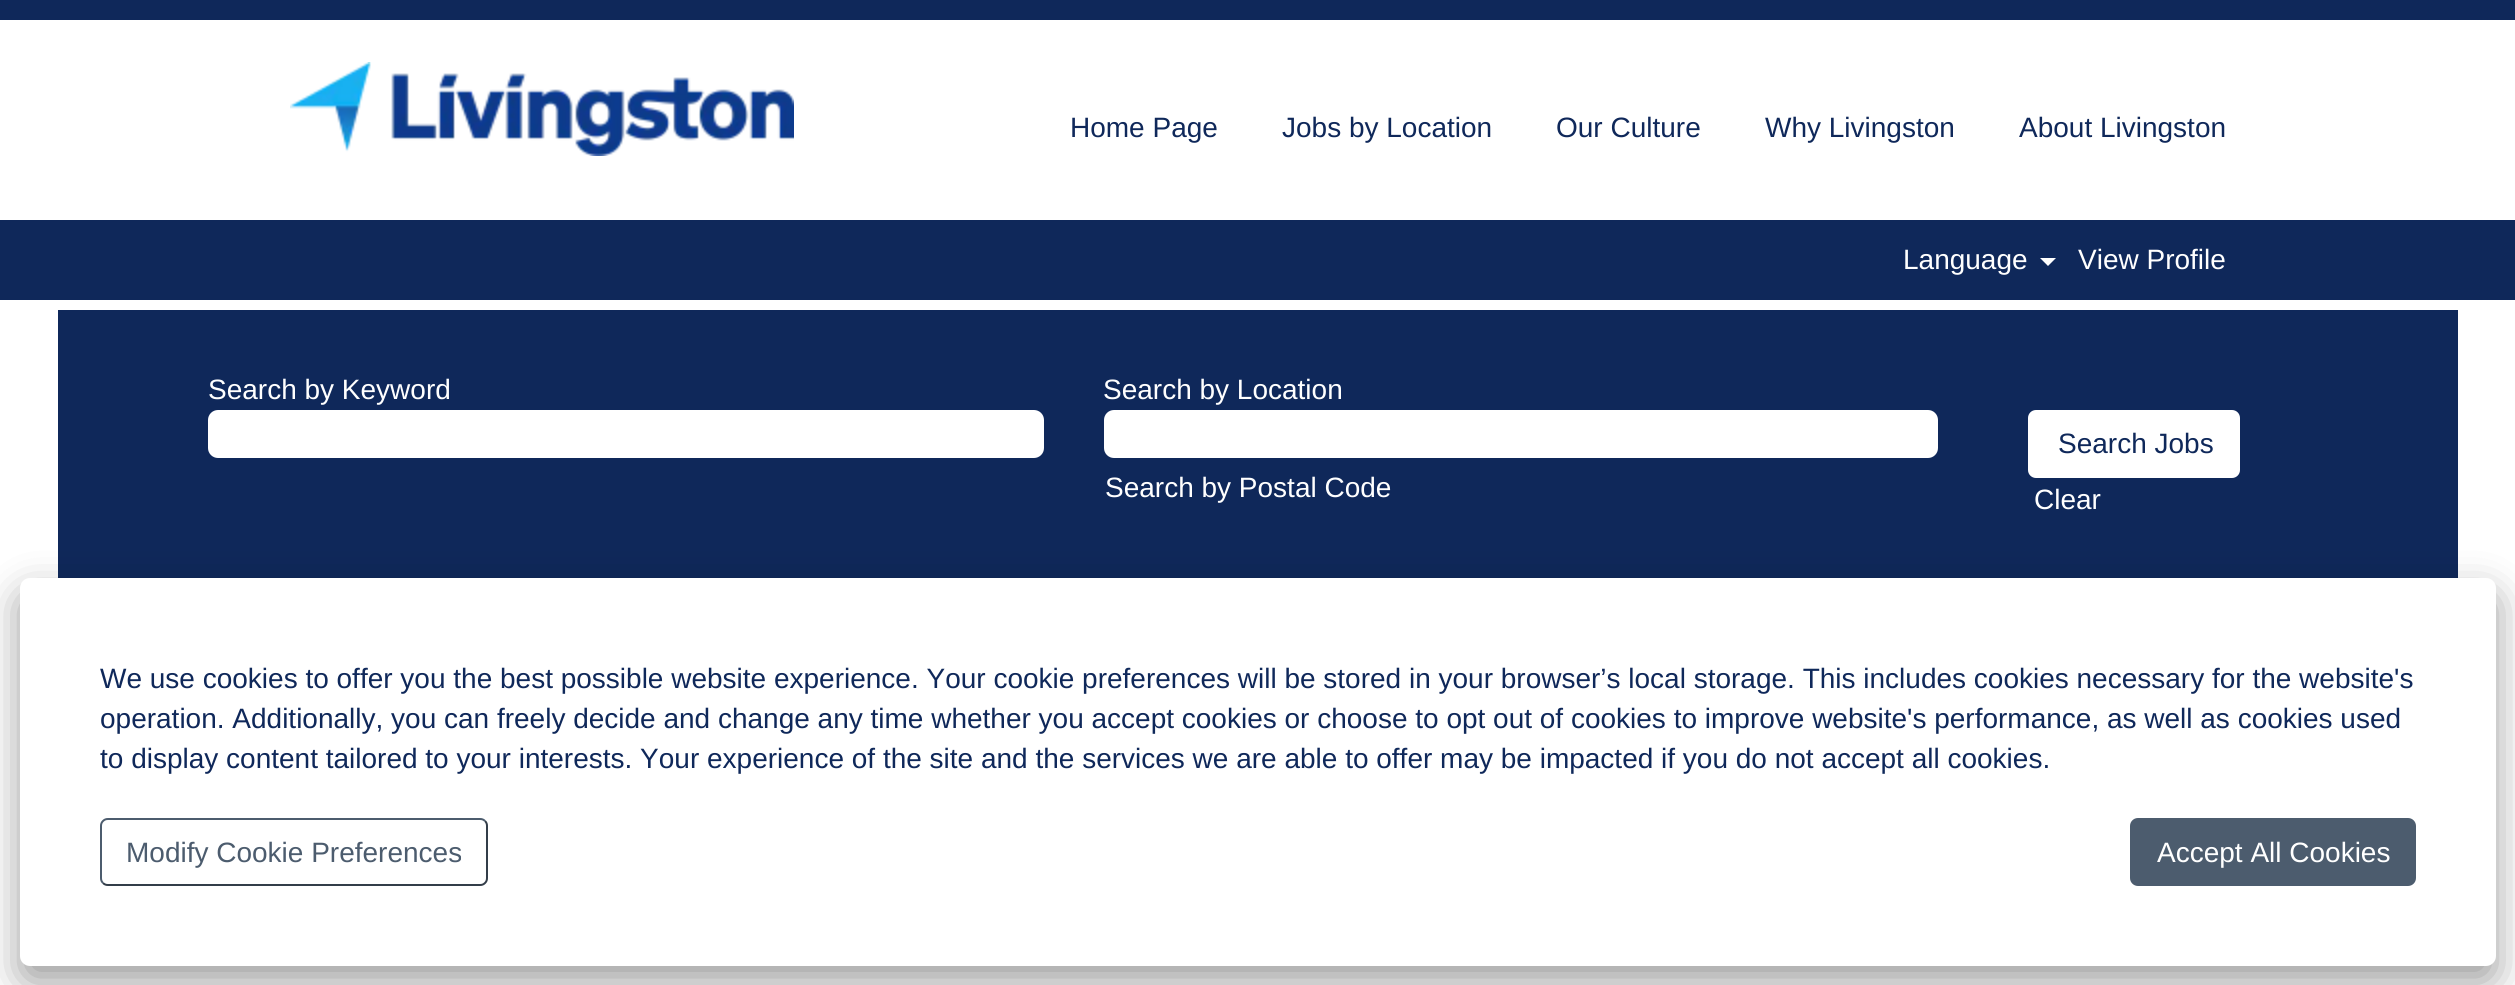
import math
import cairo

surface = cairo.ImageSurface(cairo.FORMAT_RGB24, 2515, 985)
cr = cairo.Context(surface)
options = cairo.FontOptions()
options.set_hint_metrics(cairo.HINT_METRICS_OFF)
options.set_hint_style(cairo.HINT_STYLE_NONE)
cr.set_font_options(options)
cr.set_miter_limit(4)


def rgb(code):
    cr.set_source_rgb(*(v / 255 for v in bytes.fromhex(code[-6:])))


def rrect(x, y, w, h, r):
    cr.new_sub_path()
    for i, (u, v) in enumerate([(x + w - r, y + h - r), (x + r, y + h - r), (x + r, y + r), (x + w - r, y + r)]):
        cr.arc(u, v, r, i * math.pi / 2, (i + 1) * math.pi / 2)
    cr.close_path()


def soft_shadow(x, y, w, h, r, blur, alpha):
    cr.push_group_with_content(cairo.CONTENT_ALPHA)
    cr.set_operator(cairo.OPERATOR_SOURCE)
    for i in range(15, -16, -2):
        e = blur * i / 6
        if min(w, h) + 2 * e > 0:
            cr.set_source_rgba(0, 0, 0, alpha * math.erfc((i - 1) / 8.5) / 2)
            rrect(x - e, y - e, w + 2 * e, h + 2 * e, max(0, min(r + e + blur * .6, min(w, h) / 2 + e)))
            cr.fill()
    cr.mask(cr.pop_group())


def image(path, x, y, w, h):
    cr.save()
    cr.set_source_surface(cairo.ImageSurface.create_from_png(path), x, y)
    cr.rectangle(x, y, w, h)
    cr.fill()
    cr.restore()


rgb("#ffffff")
cr.paint()
rgb("#0f285a")
cr.rectangle(0, 0, 2515, 20)
cr.fill()
image("img/1.png", 290, 62, 504, 94)
cr.rectangle(0, 220, 2515, 80)
cr.fill()
rgb("#ffffff")
cr.new_path()
cr.move_to(2040, 258)
cr.line_to(2056, 258)
cr.line_to(2048, 266)
cr.close_path()
cr.fill()
rgb("#0f285a")
cr.rectangle(58, 310, 2400, 268)
cr.fill()
rgb("#ffffff")
rrect(208, 410, 836, 48, 10)
cr.fill()
rrect(1104, 410, 834, 48, 10)
cr.fill()
rrect(2028, 410, 212, 68, 8)
cr.fill()
rgb("#000000")
soft_shadow(20, 594, 2476, 388, 10, 20, 0.39)
rgb("#ffffff")
rrect(20, 578, 2476, 388, 10)
cr.fill()
cr.new_path()
cr.move_to(485, 821)
cr.curve_to(486.5, 822.5, 487, 824, 487, 826)
cr.line_to(487, 878)
cr.curve_to(487, 880, 486.5, 881.5, 485, 883)
cr.curve_to(483.5, 884.5, 482, 885, 480, 885)
cr.line_to(108, 885)
cr.curve_to(106, 885, 104.5, 884.5, 103, 883)
rgb("#333d49")
cr.stroke()
cr.new_path()
cr.move_to(103, 883)
cr.curve_to(101.5, 881.5, 101, 880, 101, 878)
cr.line_to(101, 826)
cr.curve_to(101, 824, 101.5, 822.5, 103, 821)
cr.curve_to(104.5, 819.5, 106, 819, 108, 819)
cr.line_to(480, 819)
cr.curve_to(482, 819, 483.5, 819.5, 485, 821)
rgb("#4c5c6e")
cr.stroke()
rrect(2130, 818, 286, 68, 8)
cr.fill()
cr.select_font_face("Liberation Sans")
cr.set_font_size(28)
rgb("#0f285a")
for x, y, s in [
    (1070, 137, "Home Page"),
    (1282, 137, "Jobs by Location"),
    (1556, 137, "Our Culture"),
    (1765, 137, "Why Livingston"),
    (2019, 137, "About Livingston"),
]:
    cr.move_to(x, y)
    cr.show_text(s)
rgb("#ffffff")
for x, y, s in [
    (1903, 269, "Language"),
    (2078, 269, "View Profile"),
    (208, 399, "Search by Keyword"),
    (1103, 399, "Search by Location"),
    (1105, 497, "Search by Postal Code"),
]:
    cr.move_to(x, y)
    cr.show_text(s)
rgb("#0f285a")
cr.move_to(2058, 453)
cr.show_text("Search Jobs")
rgb("#ffffff")
cr.move_to(2034, 509)
cr.show_text("Clear")
rgb("#0f285a")
for x, y, s in [
    (100, 688, "We use cookies to offer you the best possible website experience. Your cookie preferences will be stored in your browser’s local storage. This includes cookies necessary for the website's"),
    (100, 728, "operation. Additionally, you can freely decide and change any time whether you accept cookies or choose to opt out of cookies to improve website's performance, as well as cookies used"),
    (100, 768, "to display content tailored to your interests. Your experience of the site and the services we are able to offer may be impacted if you do not accept all cookies."),
]:
    cr.move_to(x, y)
    cr.show_text(s)
rgb("#4c5c6e")
cr.move_to(126, 862)
cr.show_text("Modify Cookie Preferences")
rgb("#ffffff")
cr.move_to(2157, 862)
cr.show_text("Accept All Cookies")
surface.write_to_png("page.png")
